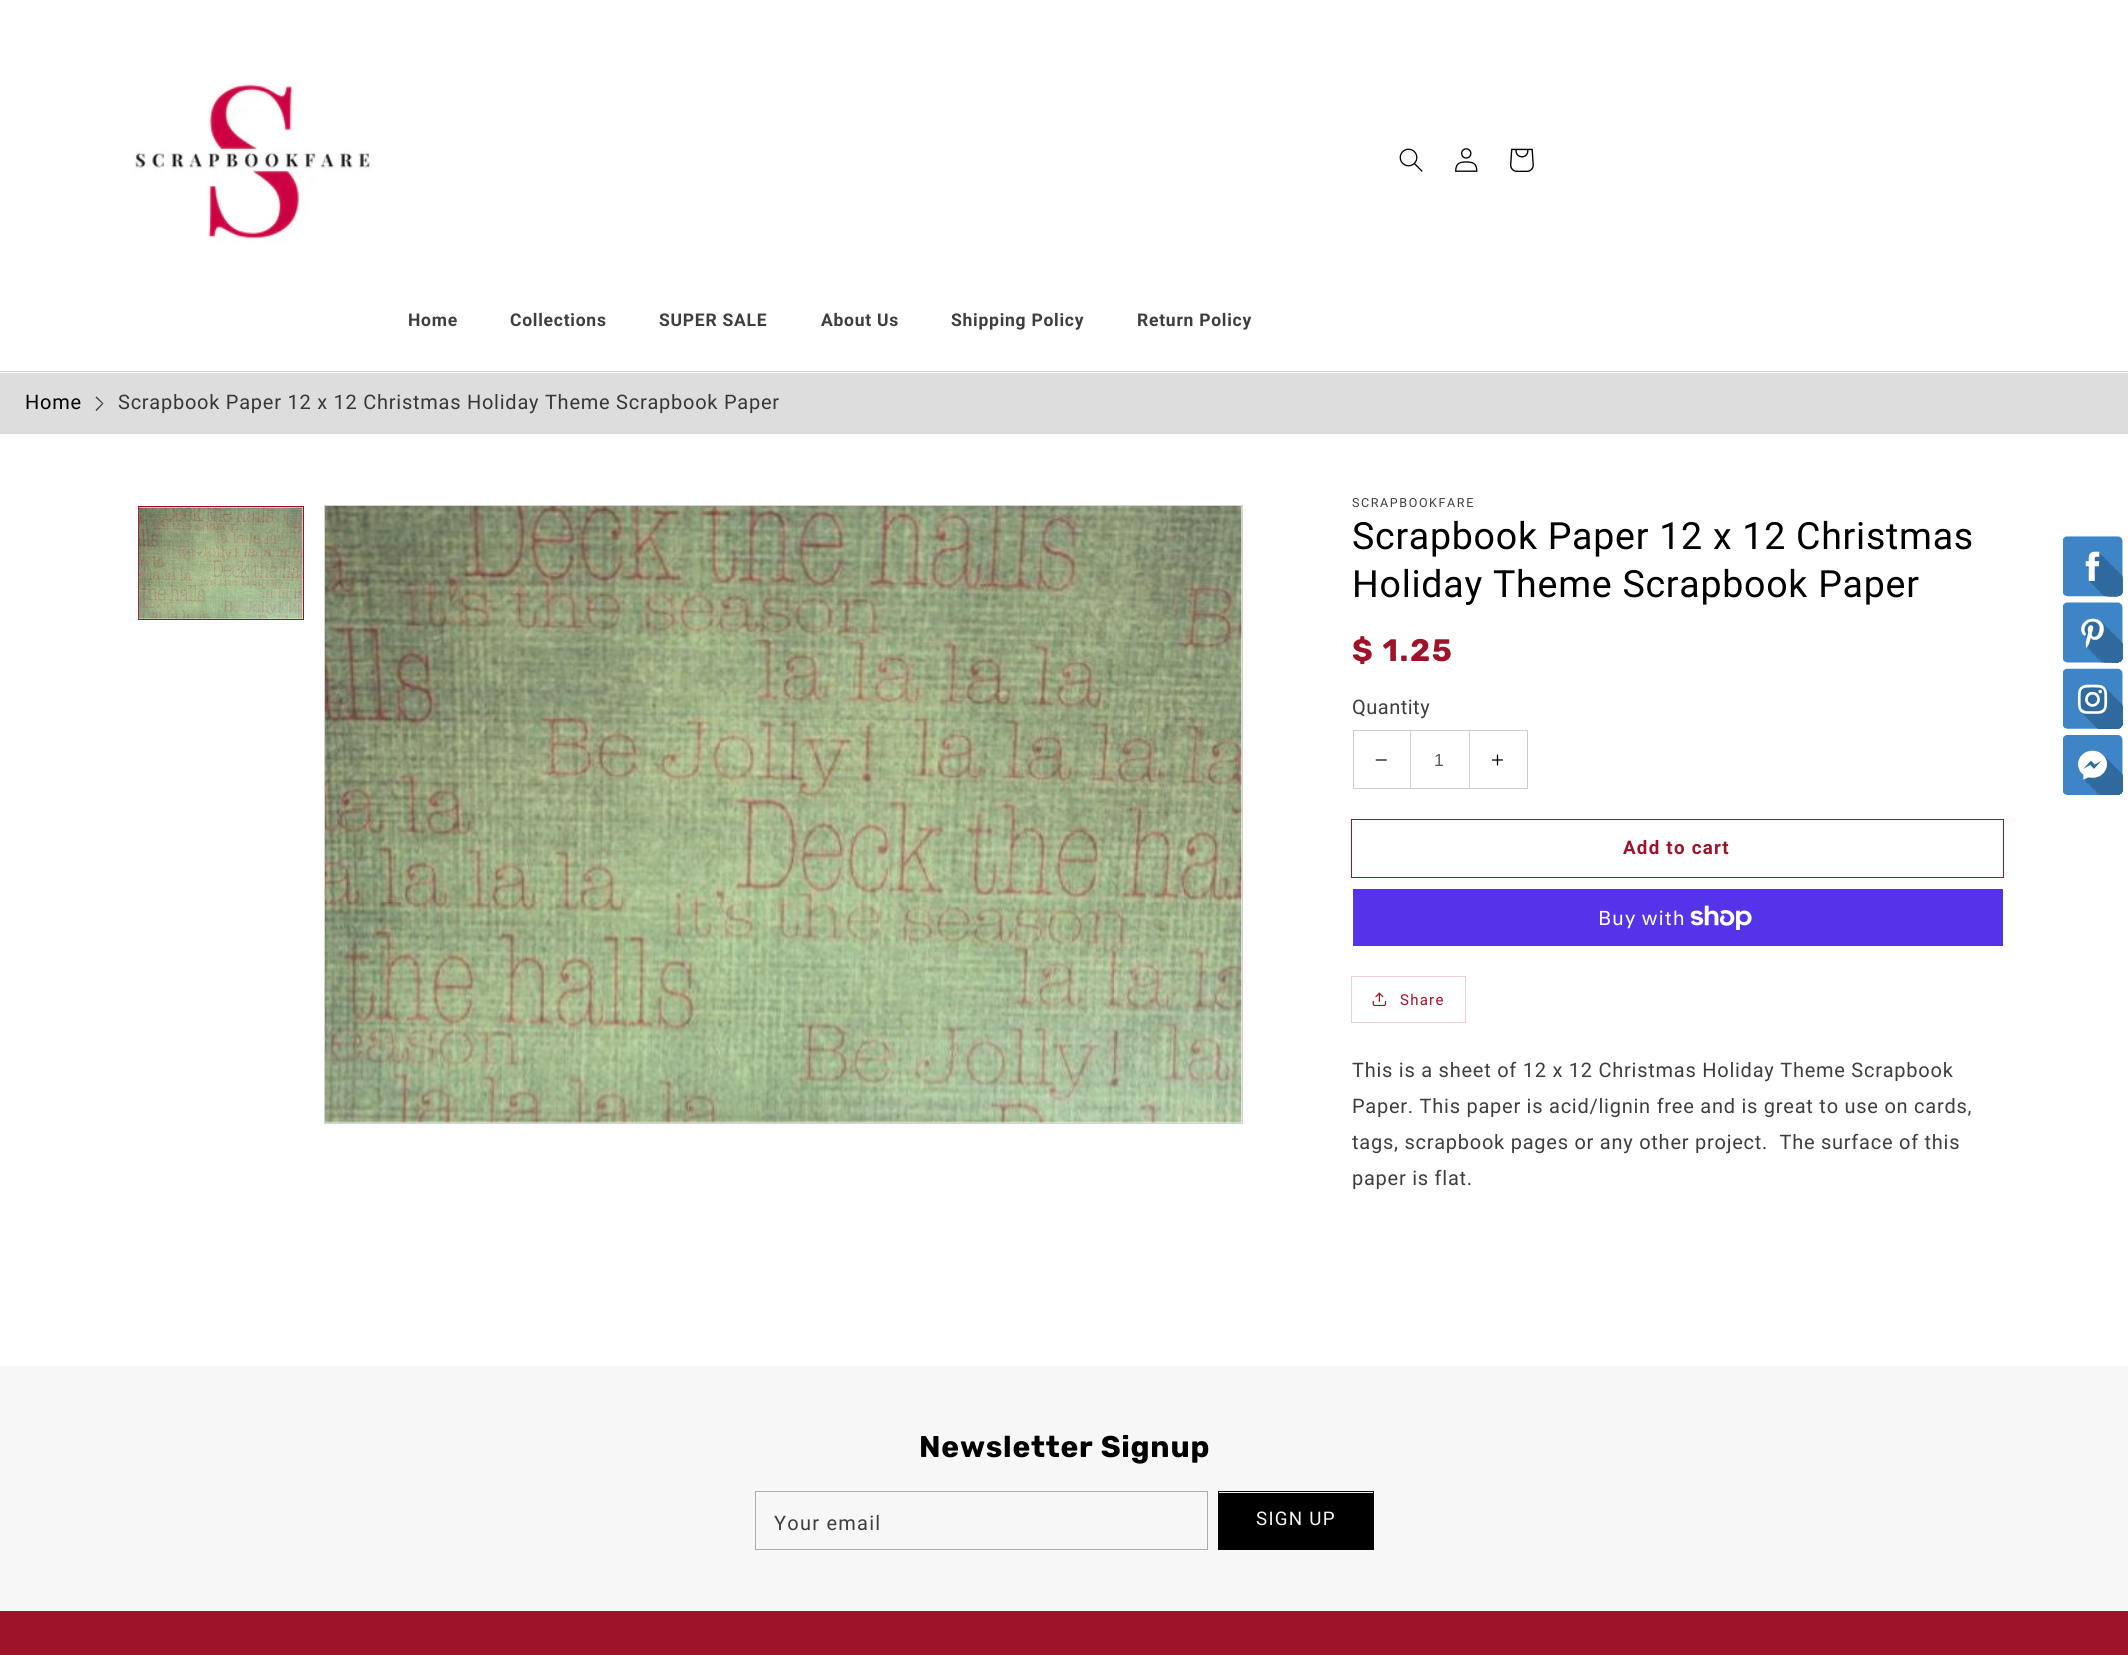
import math
import cairo

surface = cairo.ImageSurface(cairo.FORMAT_RGB24, 2128, 1655)
cr = cairo.Context(surface)
options = cairo.FontOptions()
options.set_hint_metrics(cairo.HINT_METRICS_OFF)
options.set_hint_style(cairo.HINT_STYLE_NONE)
cr.set_font_options(options)
cr.set_miter_limit(4)


def rgb(code):
    cr.set_source_rgb(*(v / 255 for v in bytes.fromhex(code[-6:])))


def tracked(x, y, s, letter, word):
    cr.move_to(x, y)
    for ch in s:
        cr.show_text(ch)
        cr.rel_move_to(letter + word * (ch == ' '), 0)


def image(path, x, y, w, h):
    cr.save()
    cr.set_source_surface(cairo.ImageSurface.create_from_png(path), x, y)
    cr.rectangle(x, y, w, h)
    cr.fill()
    cr.restore()


rgb("#ffffff")
cr.paint()
rgb("#cccccc")
cr.rectangle(0, 371, 2128, 1)
cr.fill()
image("img/1.png", 133, 84, 240, 159)
image("img/2.png", 1399, 148, 24, 24)
image("img/3.png", 1455, 148, 23, 24)
image("img/4.png", 1510, 148, 24, 24)
rgb("#dddddd")
cr.rectangle(0, 373, 2128, 61)
cr.fill()
rgb("#373737")
cr.new_path()
cr.move_to(96.5, 396.5)
cr.line_to(103.5, 403.5)
cr.line_to(102, 403.5)
cr.line_to(95.5, 397.5)
cr.close_path()
cr.fill()
cr.set_source_rgba(0, 0, 0, 0.75)
cr.new_path()
cr.move_to(103.5, 403.5)
cr.line_to(96.5, 411)
cr.line_to(95.5, 410)
cr.line_to(102, 403.5)
cr.close_path()
cr.fill()
cr.rectangle(138.5, 506.5, 165, 113)
rgb("#9e1329")
cr.set_line_width(1)
cr.stroke()
image("img/5.png", 138, 507, 165, 112)
cr.rectangle(324.5, 505.5, 918, 618)
rgb("#d3d3d3")
cr.stroke()
image("img/6.png", 325, 506, 917, 617)
cr.rectangle(1353.5, 730.5, 174, 58)
rgb("#cccccc")
cr.stroke()
image("img/7.png", 1375, 759, 12, 2)
rgb("#d4d4d4")
cr.rectangle(1469, 731, 1, 57)
cr.fill()
cr.rectangle(1410, 731, 1, 57)
cr.fill()
image("img/8.png", 1492, 754, 12, 12)
cr.rectangle(1351.5, 819.5, 652, 58)
rgb("#9e1329")
cr.stroke()
rgb("#5433eb")
cr.rectangle(1353, 889, 650, 57)
cr.fill()
image("img/9.png", 1690, 905, 62, 25)
cr.rectangle(1351.5, 976.5, 114, 46)
rgb("#ecd0d4")
cr.stroke()
image("img/10.png", 1372, 992, 15, 15)
rgb("#f7f7f7")
cr.rectangle(0, 1366, 2128, 245)
cr.fill()
cr.rectangle(755.5, 1491.5, 452, 58)
rgb("#adadad")
cr.stroke()
cr.rectangle(1218.5, 1491.5, 155, 58)
rgb("#000000")
cr.stroke()
cr.rectangle(1219, 1493, 154, 56)
cr.fill()
image("img/11.png", 2063, 536, 60, 259)
rgb("#9e1329")
cr.rectangle(0, 1611, 2128, 44)
cr.fill()
cr.select_font_face("Roboto", cairo.FONT_SLANT_NORMAL, cairo.FONT_WEIGHT_BOLD)
cr.set_font_size(17.5)
rgb("#3e3e3e")
for x, y, s in [
    (408, 326, "Home"),
    (510, 326, "Collections"),
    (659, 326, "SUPER SALE"),
    (821, 326, "About Us"),
    (951, 326, "Shipping Policy"),
    (1137, 326, "Return Policy"),
]:
    tracked(x, y, s, 0.75, 0)
cr.select_font_face("Roboto")
cr.set_font_size(20)
rgb("#000000")
tracked(25, 409, "Home", 0.75, 0)
rgb("#373737")
tracked(118, 409, "Scrapbook Paper 12 x 12 Christmas Holiday Theme Scrapbook Paper", 0.75, 0)
cr.set_font_size(12.5)
rgb("#3e3e3e")
tracked(1352, 507, "SCRAPBOOKFARE", 1.6, 0)
cr.set_font_size(37.5)
rgb("#000000")
tracked(1352, 549, "Scrapbook Paper 12 x 12 Christmas", 0.75, 0)
tracked(1352, 597, "Holiday Theme Scrapbook Paper", 0.75, 0)
cr.select_font_face("Rubik", cairo.FONT_SLANT_NORMAL, cairo.FONT_WEIGHT_BOLD)
cr.set_font_size(31)
rgb("#9e1329")
tracked(1352, 661, "$ 1.25", 1.6, 0)
cr.select_font_face("Roboto")
cr.set_font_size(20)
rgb("#3e3e3e")
tracked(1352, 714, "Quantity", 0.5, 0)
cr.select_font_face("Liberation Sans")
cr.set_font_size(17.5)
rgb("#5c5c5c")
cr.move_to(1434, 766)
cr.show_text("1")
cr.select_font_face("Roboto", cairo.FONT_SLANT_NORMAL, cairo.FONT_WEIGHT_BOLD)
cr.set_font_size(18.75)
rgb("#9e1329")
tracked(1623, 854, "Add to cart", 1.25, 0)
cr.select_font_face("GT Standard")
cr.set_font_size(20)
rgb("#ffffff")
tracked(1598, 925, "Buy with", 0.75, 0)
cr.select_font_face("Roboto")
cr.set_font_size(15)
rgb("#9e1329")
tracked(1400, 1005, "Share", 1.25, 0)
cr.set_font_size(20)
rgb("#3e3e3e")
for x, y, s in [
    (1352, 1077, "This is a sheet of 12 x 12 Christmas Holiday Theme Scrapbook"),
    (1352, 1113, "Paper. This paper is acid/lignin free and is great to use on cards,"),
    (1352, 1149, "tags, scrapbook pages or any other project.  The surface of this"),
    (1352, 1185, "paper is flat."),
]:
    tracked(x, y, s, 0.75, 0)
cr.select_font_face("Rubik", cairo.FONT_SLANT_NORMAL, cairo.FONT_WEIGHT_BOLD)
cr.set_font_size(30)
rgb("#000000")
tracked(919, 1457, "Newsletter Signup", 0.75, 0)
cr.select_font_face("Roboto")
cr.set_font_size(20)
rgb("#3e3e3e")
tracked(774, 1530, "Your email", 1.25, 0)
cr.set_font_size(18.75)
rgb("#f7f7f7")
tracked(1256, 1525, "SIGN UP", 1.25, 0)
surface.write_to_png("page.png")
